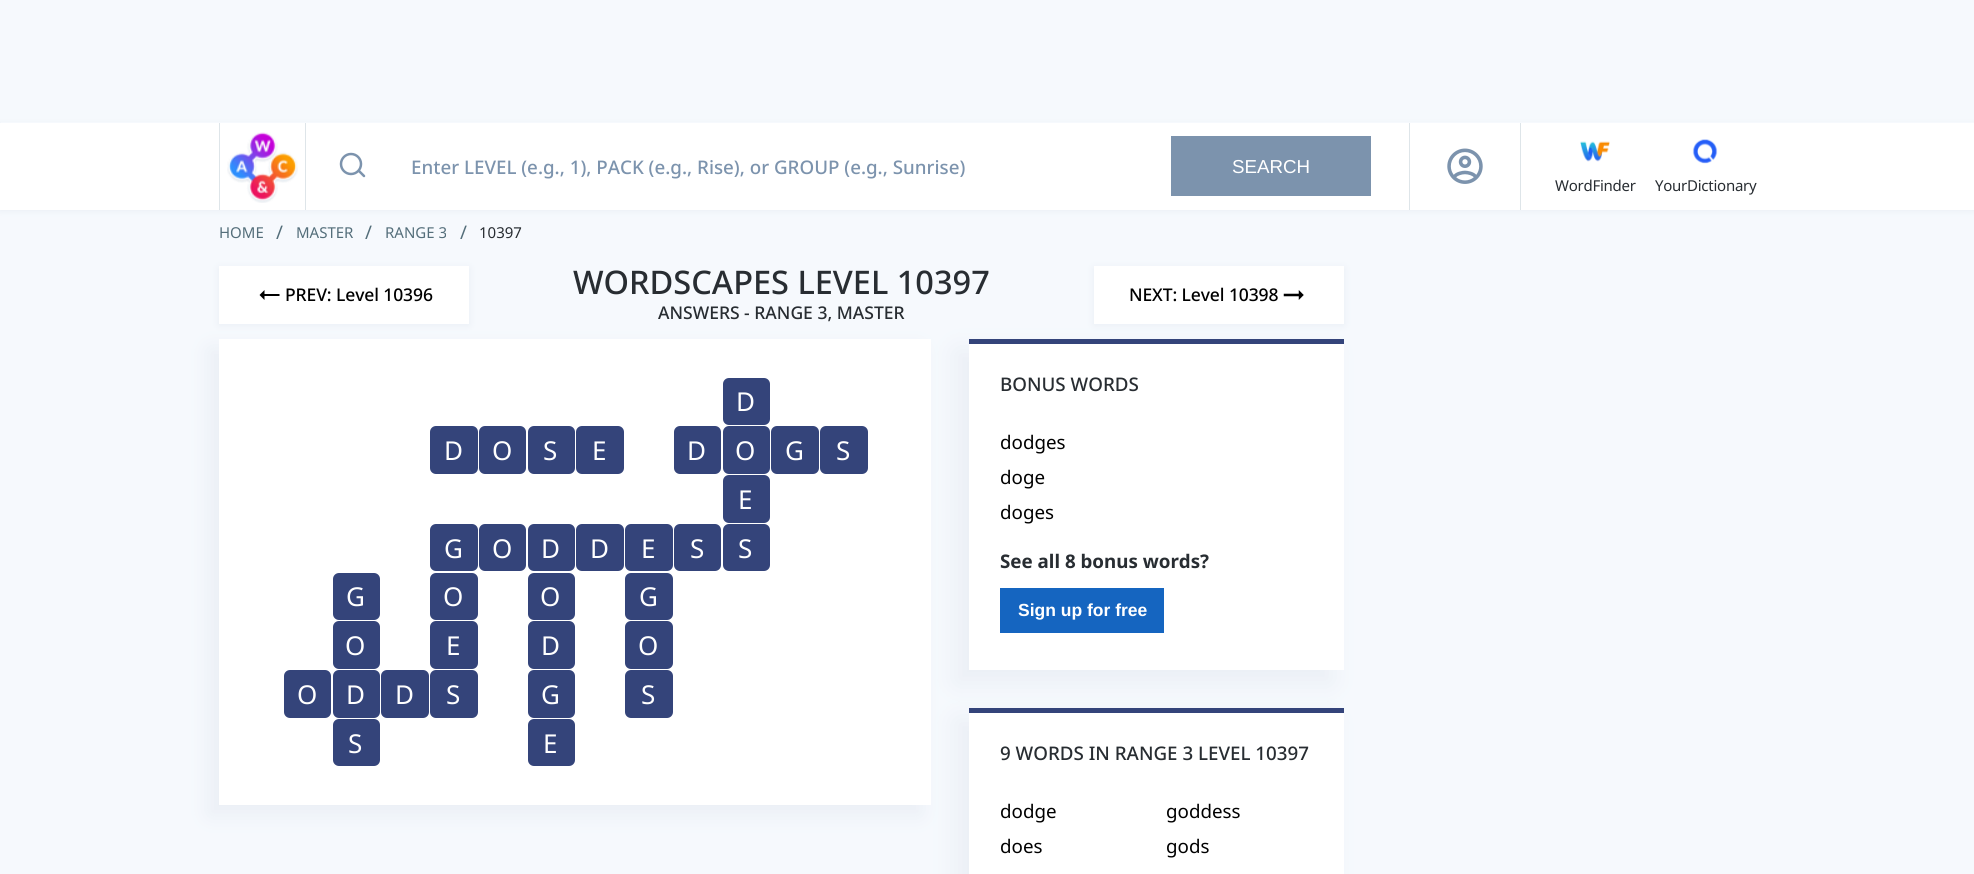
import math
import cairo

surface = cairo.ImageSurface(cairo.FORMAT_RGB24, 1974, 874)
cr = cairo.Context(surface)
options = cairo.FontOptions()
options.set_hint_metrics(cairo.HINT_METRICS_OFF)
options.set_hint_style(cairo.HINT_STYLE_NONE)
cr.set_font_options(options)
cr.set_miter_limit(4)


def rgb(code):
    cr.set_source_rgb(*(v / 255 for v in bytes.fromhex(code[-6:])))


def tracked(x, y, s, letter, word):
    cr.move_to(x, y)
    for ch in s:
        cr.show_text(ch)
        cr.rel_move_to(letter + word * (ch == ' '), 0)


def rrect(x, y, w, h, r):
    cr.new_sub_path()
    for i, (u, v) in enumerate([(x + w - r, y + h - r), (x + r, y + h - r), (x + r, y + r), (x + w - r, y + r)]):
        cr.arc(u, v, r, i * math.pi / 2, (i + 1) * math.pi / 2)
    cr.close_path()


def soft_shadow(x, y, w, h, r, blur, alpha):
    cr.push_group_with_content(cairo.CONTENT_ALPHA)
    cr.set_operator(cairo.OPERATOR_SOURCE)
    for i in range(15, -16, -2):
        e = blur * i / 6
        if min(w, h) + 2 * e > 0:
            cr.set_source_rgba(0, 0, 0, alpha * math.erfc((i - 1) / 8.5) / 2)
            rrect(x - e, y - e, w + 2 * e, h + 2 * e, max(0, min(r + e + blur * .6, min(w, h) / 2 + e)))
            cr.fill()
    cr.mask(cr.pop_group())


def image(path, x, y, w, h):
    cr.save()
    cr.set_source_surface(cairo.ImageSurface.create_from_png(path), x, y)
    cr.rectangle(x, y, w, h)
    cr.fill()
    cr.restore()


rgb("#f6f9fd")
cr.paint()
rgb("#7c93ad")
soft_shadow(0, 124, 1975, 87, 0, 3, 0.1)
for x, y, w, h, color in [
    (1, 122, 1973, 1, "#f6f9fd"),
    (0, 123, 1974, 87, "#ffffff"),
    (305, 123, 1, 87, "#dee5e9"),
    (219, 123, 1, 87, "#dee5e9"),
]:
    rgb(color)
    cr.rectangle(x, y, w, h)
    cr.fill()
image("img/1.png", 227, 132, 71, 71)
cr.arc(351, 164, 10, 0, 2 * math.pi)
rgb("#7c93ad")
cr.set_line_width(2.5)
cr.stroke()
cr.new_path()
cr.move_to(364, 176)
cr.line_to(359, 171)
cr.set_line_cap(cairo.LINE_CAP_ROUND)
cr.set_line_join(cairo.LINE_JOIN_ROUND)
cr.stroke()
cr.rectangle(1171, 136, 200, 60)
cr.fill()
rgb("#dee5e9")
cr.rectangle(1409, 123, 1, 87)
cr.fill()
image("img/2.png", 1447, 148, 36, 36)
cr.rectangle(1520, 123, 1, 87)
cr.fill()
image("img/3.png", 1580, 141, 30, 21)
image("img/4.png", 1692, 139, 26, 25)
rgb("#7c93ad")
soft_shadow(219, 268, 250, 57, 0, 4, 0.1)
rgb("#ffffff")
cr.rectangle(219, 266, 250, 58)
cr.fill()
rgb("#000000")
cr.new_path()
cr.move_to(264.5, 296)
cr.line_to(279.5, 296)
cr.line_to(279.5, 294)
cr.line_to(264.5, 294)
cr.line_to(264.5, 290)
cr.line_to(259.5, 295)
cr.line_to(264.5, 300)
cr.close_path()
cr.fill()
rgb("#7c93ad")
soft_shadow(1094, 268, 250, 57, 0, 4, 0.1)
rgb("#ffffff")
cr.rectangle(1094, 266, 250, 58)
cr.fill()
image("img/5.png", 1283, 290, 21, 10)
rgb("#7c93ad")
soft_shadow(209, 349, 712, 466, 0, 10, 0.1)
rgb("#ffffff")
cr.rectangle(219, 339, 712, 466)
cr.fill()
rgb("#34447a")
rrect(723, 378, 47, 47, 6)
cr.fill()
rrect(430, 426, 48, 48, 6)
cr.fill()
rrect(479, 426, 47, 48, 6)
cr.fill()
rrect(528, 426, 47, 48, 6)
cr.fill()
rrect(576, 426, 48, 48, 6)
cr.fill()
rrect(674, 426, 47, 48, 6)
cr.fill()
rrect(723, 426, 47, 48, 6)
cr.fill()
rrect(771, 426, 48, 48, 6)
cr.fill()
rrect(820, 426, 48, 48, 6)
cr.fill()
rrect(723, 475, 47, 48, 6)
cr.fill()
rrect(430, 524, 48, 47, 6)
cr.fill()
rrect(479, 524, 47, 47, 6)
cr.fill()
rrect(528, 524, 47, 47, 6)
cr.fill()
rrect(576, 524, 48, 47, 6)
cr.fill()
rrect(625, 524, 48, 47, 6)
cr.fill()
rrect(674, 524, 47, 47, 6)
cr.fill()
rrect(723, 524, 47, 47, 6)
cr.fill()
rrect(333, 573, 47, 47, 6)
cr.fill()
rrect(430, 573, 48, 47, 6)
cr.fill()
rrect(528, 573, 47, 47, 6)
cr.fill()
rrect(625, 573, 48, 47, 6)
cr.fill()
rrect(333, 621, 47, 48, 6)
cr.fill()
rrect(430, 621, 48, 48, 6)
cr.fill()
rrect(528, 621, 47, 48, 6)
cr.fill()
rrect(625, 621, 48, 48, 6)
cr.fill()
rrect(284, 670, 47, 48, 6)
cr.fill()
rrect(333, 670, 47, 48, 6)
cr.fill()
rrect(381, 670, 48, 48, 6)
cr.fill()
rrect(430, 670, 48, 48, 6)
cr.fill()
rrect(528, 670, 47, 48, 6)
cr.fill()
rrect(625, 670, 48, 48, 6)
cr.fill()
rrect(333, 719, 47, 47, 6)
cr.fill()
rrect(528, 719, 47, 47, 6)
cr.fill()
rgb("#7c93ad")
soft_shadow(956, 351, 375, 332, 0, 12.5, 0.1)
for x, y, w, h, color in [
    (969, 344, 375, 326, "#ffffff"),
    (969, 339, 375, 5, "#34447a"),
    (1000, 588, 164, 45, "#1565c0"),
]:
    rgb(color)
    cr.rectangle(x, y, w, h)
    cr.fill()
rgb("#7c93ad")
soft_shadow(956, 720, 375, 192, 0, 12.5, 0.1)
rgb("#ffffff")
cr.rectangle(969, 713, 375, 161)
cr.fill()
rgb("#34447a")
cr.rectangle(969, 708, 375, 5)
cr.fill()
cr.select_font_face("Noto Sans Medium")
cr.set_font_size(18.75)
rgb("#7c93ad")
cr.move_to(411, 174)
cr.show_text("Enter LEVEL (e.g., 1), PACK (e.g., Rise), or GROUP (e.g., Sunrise)")
cr.select_font_face("Liberation Sans")
rgb("#ffffff")
cr.move_to(1232, 173)
cr.show_text("SEARCH")
cr.select_font_face("Noto Sans")
cr.set_font_size(15)
rgb("#282d32")
tracked(1555, 191, "WordFinder", -0.25, 0)
tracked(1655, 191, "YourDictionary", -0.25, 0)
rgb("#546e7a")
cr.move_to(219, 238)
cr.show_text("HOME")
cr.set_font_size(18.75)
cr.move_to(276, 239)
cr.show_text("/")
cr.set_font_size(15)
cr.move_to(296, 238)
cr.show_text("MASTER")
cr.set_font_size(18.75)
cr.move_to(365, 239)
cr.show_text("/")
cr.set_font_size(15)
cr.move_to(385, 238)
cr.show_text("RANGE 3")
cr.set_font_size(18.75)
cr.move_to(460, 239)
cr.show_text("/")
cr.set_font_size(15)
rgb("#282d32")
cr.move_to(479, 238)
cr.show_text("10397")
cr.select_font_face("Noto Sans Medium")
cr.set_font_size(17.5)
rgb("#000000")
tracked(285, 301, "PREV: Level 10396", -0.1, 0)
cr.set_font_size(32.5)
rgb("#282d32")
cr.move_to(573, 294)
cr.show_text("WORDSCAPES LEVEL 10397")
cr.set_font_size(17.5)
cr.move_to(658, 319)
cr.show_text("ANSWERS - RANGE 3, MASTER")
rgb("#000000")
tracked(1129, 301, "NEXT: Level 10398", -0.1, 0)
cr.select_font_face("Noto Sans")
cr.set_font_size(26)
rgb("#ffffff")
for x, y, s in [
    (736, 411, "D"),
    (444, 460, "D"),
    (492, 460, "O"),
    (543, 460, "S"),
    (592, 460, "E"),
    (687, 460, "D"),
    (735, 460, "O"),
    (785, 460, "G"),
    (836, 460, "S"),
    (738, 509, "E"),
    (444, 558, "G"),
    (492, 558, "O"),
    (541, 558, "D"),
    (590, 558, "D"),
    (641, 558, "E"),
    (690, 558, "S"),
    (738, 558, "S"),
    (346, 606, "G"),
    (443, 606, "O"),
    (540, 606, "O"),
    (639, 606, "G"),
    (345, 655, "O"),
    (446, 655, "E"),
    (541, 655, "D"),
    (638, 655, "O"),
    (297, 704, "O"),
    (346, 704, "D"),
    (395, 704, "D"),
    (446, 704, "S"),
    (541, 704, "G"),
    (641, 704, "S"),
    (348, 753, "S"),
    (543, 753, "E"),
]:
    cr.move_to(x, y)
    cr.show_text(s)
cr.select_font_face("Noto Sans Medium")
cr.set_font_size(18.75)
rgb("#282d32")
cr.move_to(1000, 391)
cr.show_text("BONUS WORDS")
cr.select_font_face("Noto Sans")
rgb("#000000")
for x, y, s in [
    (1000, 449, "dodges"),
    (1000, 484, "doge"),
    (1000, 519, "doges"),
]:
    cr.move_to(x, y)
    cr.show_text(s)
cr.select_font_face("Noto Sans", cairo.FONT_SLANT_NORMAL, cairo.FONT_WEIGHT_BOLD)
rgb("#282d32")
cr.move_to(1000, 568)
cr.show_text("See all 8 bonus words?")
cr.select_font_face("Liberation Sans", cairo.FONT_SLANT_NORMAL, cairo.FONT_WEIGHT_BOLD)
cr.set_font_size(17.5)
rgb("#ffffff")
cr.move_to(1018, 616)
cr.show_text("Sign up for free")
cr.select_font_face("Noto Sans Medium")
cr.set_font_size(18.75)
rgb("#282d32")
cr.move_to(1000, 760)
cr.show_text("9 WORDS IN RANGE 3 LEVEL 10397")
cr.select_font_face("Noto Sans")
rgb("#000000")
for x, y, s in [
    (1000, 818, "dodge"),
    (1166, 818, "goddess"),
    (1000, 853, "does"),
    (1166, 853, "gods"),
]:
    cr.move_to(x, y)
    cr.show_text(s)
surface.write_to_png("page.png")
